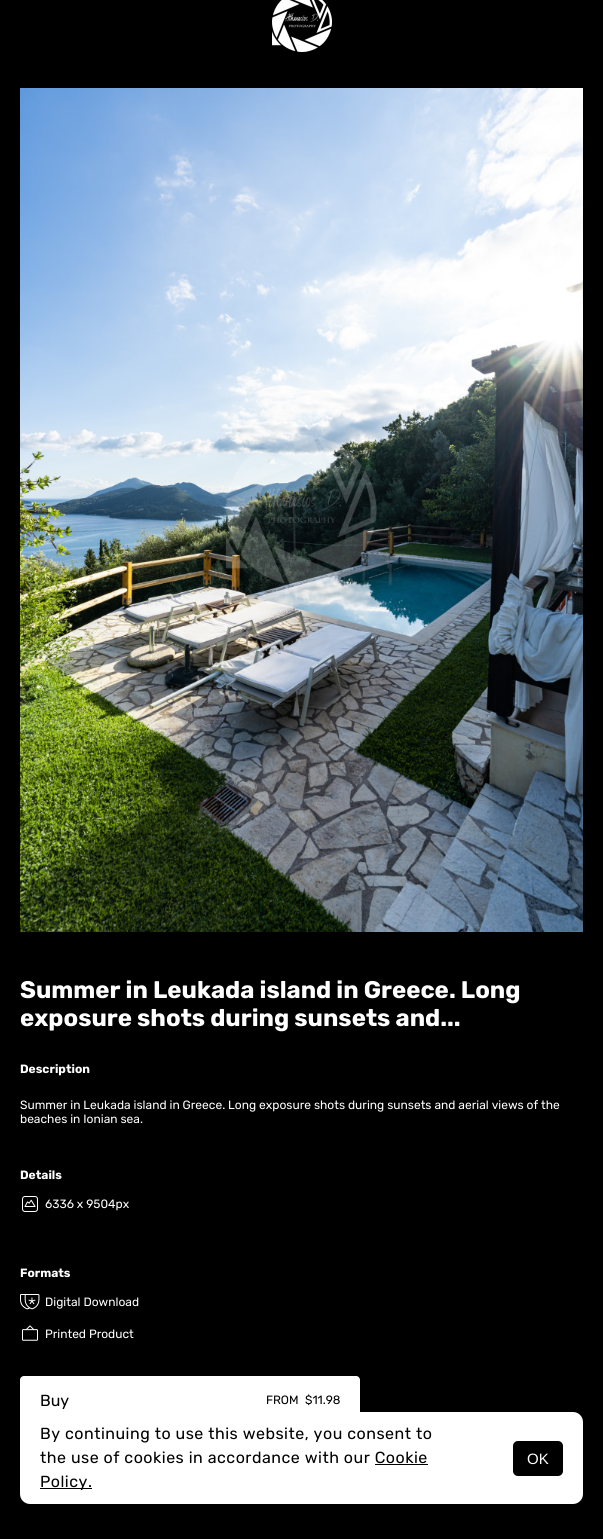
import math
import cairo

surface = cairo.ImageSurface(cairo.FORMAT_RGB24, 603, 1539)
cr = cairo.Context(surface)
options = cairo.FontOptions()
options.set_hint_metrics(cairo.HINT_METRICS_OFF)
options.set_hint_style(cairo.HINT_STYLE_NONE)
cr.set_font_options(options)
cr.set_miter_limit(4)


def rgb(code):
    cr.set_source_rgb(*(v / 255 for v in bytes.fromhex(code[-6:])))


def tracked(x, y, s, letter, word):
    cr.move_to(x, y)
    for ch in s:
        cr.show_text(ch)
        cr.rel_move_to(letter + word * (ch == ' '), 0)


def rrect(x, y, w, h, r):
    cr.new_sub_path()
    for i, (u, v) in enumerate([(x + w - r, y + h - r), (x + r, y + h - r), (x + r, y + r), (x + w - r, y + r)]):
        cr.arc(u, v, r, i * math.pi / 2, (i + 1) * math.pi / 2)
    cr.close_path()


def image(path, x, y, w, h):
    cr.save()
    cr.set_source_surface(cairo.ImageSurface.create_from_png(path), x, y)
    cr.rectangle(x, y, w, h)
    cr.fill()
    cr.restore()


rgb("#000000")
cr.paint()
image("img/1.png", 272, 0, 60, 52)
image("img/2.png", 20, 88, 563, 844)
image("img/3.png", 22, 1196, 16, 16)
image("img/4.png", 20, 1294, 20, 16)
image("img/5.png", 22, 1325, 16, 16)
rgb("#ffffff")
rrect(20, 1376, 340, 49, 4)
cr.fill()
rrect(20, 1412, 563, 92, 10)
cr.fill()
rgb("#000000")
cr.rectangle(375, 1464, 53, 1)
cr.fill()
cr.rectangle(40, 1488, 52, 1)
cr.fill()
rrect(513, 1441, 50, 35, 5)
cr.fill()
cr.select_font_face("Rubik", cairo.FONT_SLANT_NORMAL, cairo.FONT_WEIGHT_BOLD)
cr.set_font_size(24)
rgb("#ffffff")
cr.move_to(20, 998)
cr.show_text("Summer in Leukada island in Greece. Long")
cr.move_to(20, 1026)
cr.show_text("exposure shots during sunsets and...")
cr.set_font_size(12)
cr.move_to(20, 1073)
cr.show_text("Description")
cr.select_font_face("Rubik")
cr.move_to(20, 1109)
cr.show_text("Summer in Leukada island in Greece. Long exposure shots during sunsets and aerial views of the")
cr.move_to(20, 1123)
cr.show_text("beaches in Ionian sea.")
cr.select_font_face("Rubik", cairo.FONT_SLANT_NORMAL, cairo.FONT_WEIGHT_BOLD)
cr.move_to(20, 1179)
cr.show_text("Details")
cr.select_font_face("Rubik")
cr.move_to(45, 1208)
cr.show_text("6336 x 9504px")
cr.select_font_face("Rubik", cairo.FONT_SLANT_NORMAL, cairo.FONT_WEIGHT_BOLD)
cr.move_to(20, 1277)
cr.show_text("Formats")
cr.select_font_face("Rubik")
cr.move_to(45, 1306)
cr.show_text("Digital Download")
cr.move_to(45, 1338)
cr.show_text("Printed Product")
cr.set_font_size(16)
rgb("#000000")
cr.move_to(40, 1406)
cr.show_text("Buy")
cr.set_font_size(12)
cr.move_to(266, 1404)
cr.show_text("FROM")
cr.move_to(305, 1404)
cr.show_text("$11.98")
cr.set_font_size(16)
for x, y, s in [
    (40, 1439, "By continuing to use this website, you consent to"),
    (40, 1463, "the use of cookies in accordance with our Cookie"),
    (40, 1487, "Policy."),
]:
    tracked(x, y, s, 0.5, 0)
cr.select_font_face("Liberation Sans")
cr.set_font_size(15)
rgb("#ffffff")
cr.move_to(527, 1464)
cr.show_text("OK")
surface.write_to_png("page.png")
